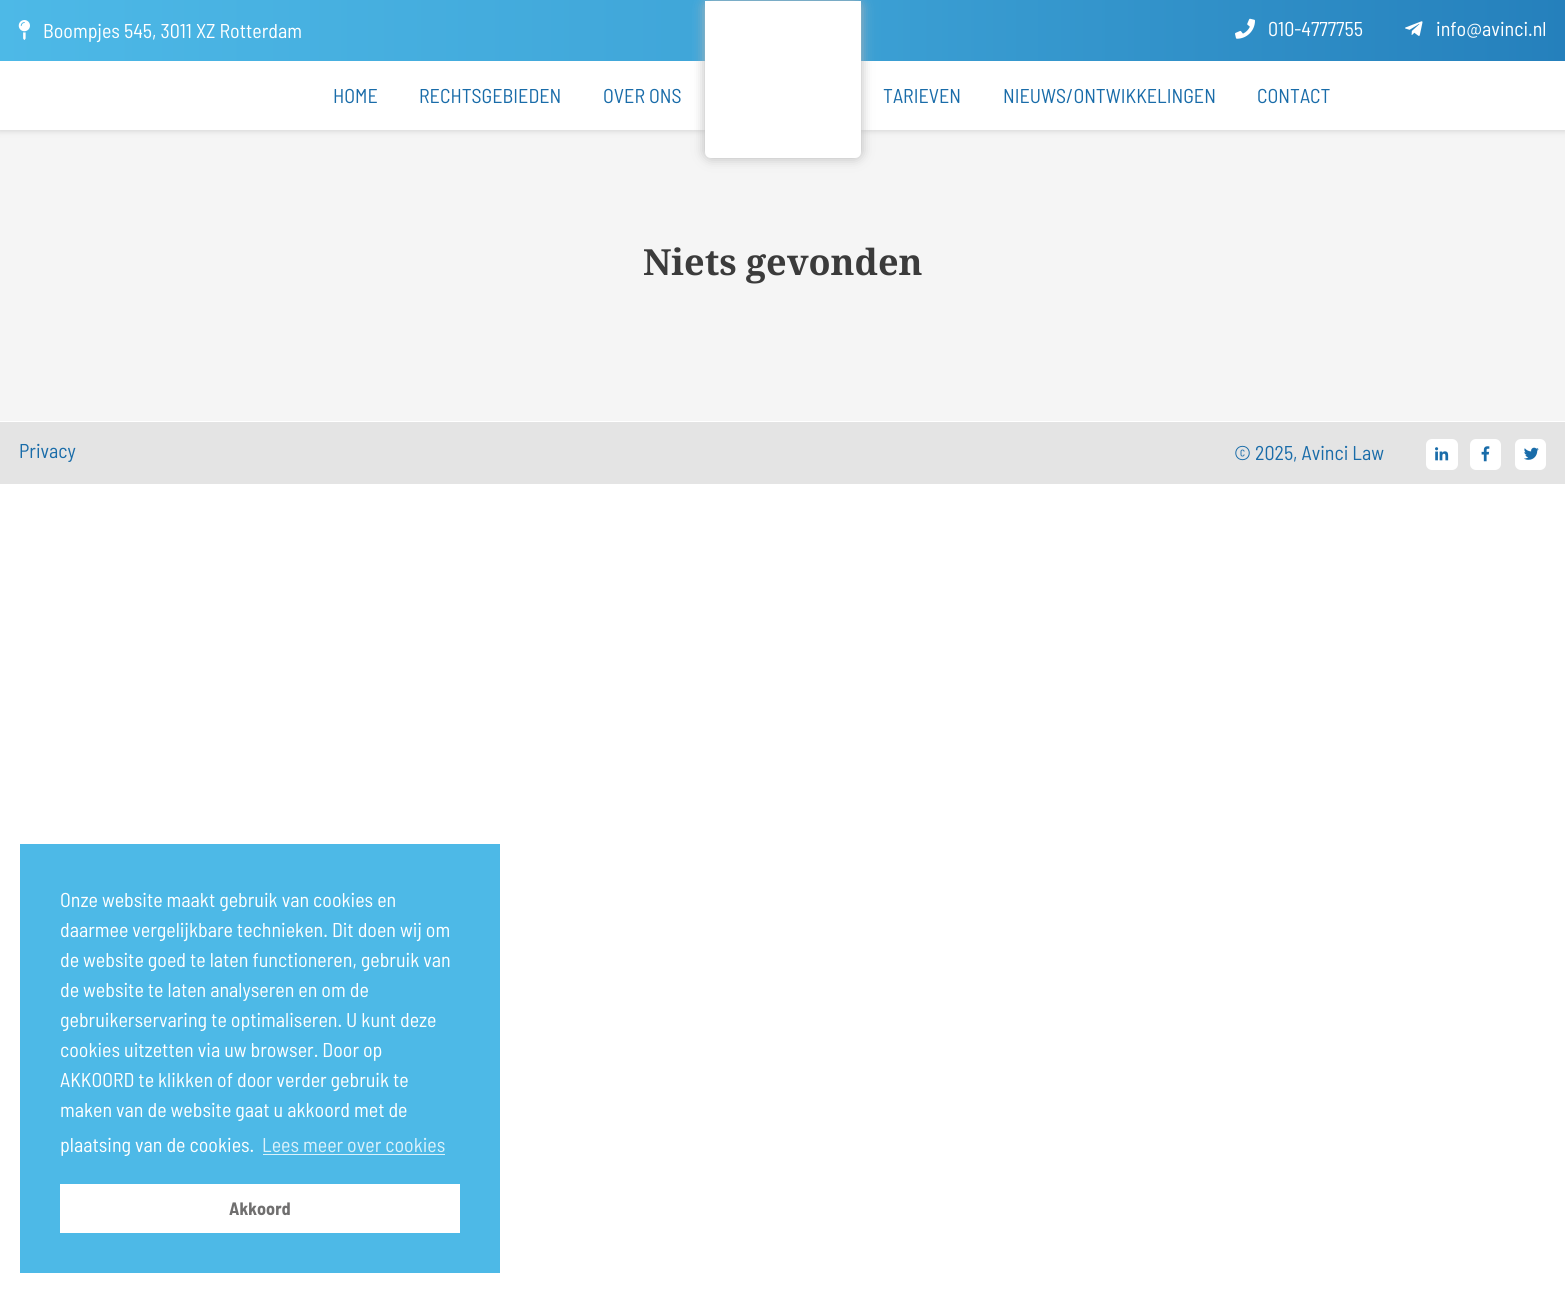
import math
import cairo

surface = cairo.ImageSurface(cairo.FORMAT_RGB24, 1565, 1292)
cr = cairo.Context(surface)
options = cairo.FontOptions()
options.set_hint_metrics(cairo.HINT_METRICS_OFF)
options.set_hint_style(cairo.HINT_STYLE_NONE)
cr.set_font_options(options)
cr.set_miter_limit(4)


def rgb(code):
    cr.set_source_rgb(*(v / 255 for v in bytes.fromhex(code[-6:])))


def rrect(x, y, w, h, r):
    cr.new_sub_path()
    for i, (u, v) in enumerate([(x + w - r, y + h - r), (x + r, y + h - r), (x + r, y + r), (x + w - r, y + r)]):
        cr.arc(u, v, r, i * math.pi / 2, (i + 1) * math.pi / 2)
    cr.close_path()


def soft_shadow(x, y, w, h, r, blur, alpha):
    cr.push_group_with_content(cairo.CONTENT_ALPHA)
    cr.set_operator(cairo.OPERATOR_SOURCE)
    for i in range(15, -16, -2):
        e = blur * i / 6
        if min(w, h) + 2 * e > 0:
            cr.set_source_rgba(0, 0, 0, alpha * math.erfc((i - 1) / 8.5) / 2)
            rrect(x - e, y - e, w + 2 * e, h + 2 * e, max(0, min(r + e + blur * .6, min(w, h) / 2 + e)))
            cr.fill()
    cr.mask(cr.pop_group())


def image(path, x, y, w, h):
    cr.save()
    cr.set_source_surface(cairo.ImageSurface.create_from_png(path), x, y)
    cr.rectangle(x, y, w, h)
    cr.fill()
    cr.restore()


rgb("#ffffff")
cr.paint()
rgb("#f5f5f5")
cr.rectangle(0, 130, 1565, 291)
cr.fill()
rgb("#d4d4d4")
soft_shadow(-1, 60, 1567, 71, 0, 3, 1)
gradient = cairo.LinearGradient(0, 31, 1565, 31)
gradient.add_color_stop_rgba(0, 0.302, 0.725, 0.906, 1)
gradient.add_color_stop_rgba(0.47, 0.247, 0.647, 0.847, 1)
gradient.add_color_stop_rgba(1, 0.145, 0.502, 0.737, 1)
cr.set_source(gradient)
cr.rectangle(0, 0, 1565, 61)
cr.fill()
image("img/1.png", 18, 20, 12, 20)
image("img/2.png", 1235, 18, 20, 21)
image("img/3.png", 1405, 21, 18, 15)
rgb("#ffffff")
cr.rectangle(0, 61, 1565, 69)
cr.fill()
rgb("#b5b5b5")
soft_shadow(705, 1, 156, 157, 6, 6, 1)
rgb("#ffffff")
cr.new_path()
cr.move_to(705, 1)
cr.line_to(861, 1)
cr.line_to(861, 152)
cr.curve_to(861, 155.5, 858.5, 158, 855, 158)
cr.line_to(711, 158)
cr.curve_to(707.5, 158, 705, 155.5, 705, 152)
cr.close_path()
cr.fill()
rgb("#e4e4e4")
cr.rectangle(0, 422, 1565, 62)
cr.fill()
rgb("#ffffff")
rrect(1426, 439, 32, 31, 6)
cr.fill()
image("img/4.png", 1435, 447, 14, 14)
rrect(1470, 439, 31, 31, 6)
cr.fill()
image("img/5.png", 1481, 446, 9, 16)
rrect(1515, 439, 31, 31, 6)
cr.fill()
image("img/6.png", 1524, 447, 15, 13)
for x, y, w, h, color in [
    (20, 844, 480, 429, "#4db9e7"),
    (263, 1154, 182, 1, "#dbf1fa"),
    (60, 1184, 400, 49, "#ffffff"),
]:
    rgb(color)
    cr.rectangle(x, y, w, h)
    cr.fill()
cr.select_font_face("Barlow Semi Condensed")
cr.set_font_size(20)
for x, y, s in [
    (43, 38, "Boompjes 545, 3011 XZ Rotterdam"),
    (1268, 36, "010-4777755"),
    (1436, 36, "info@avinci.nl"),
]:
    cr.move_to(x, y)
    cr.show_text(s)
rgb("#196ca9")
for x, y, s in [
    (333, 103, "HOME"),
    (419, 103, "RECHTSGEBIEDEN"),
    (603, 103, "OVER ONS"),
    (883, 103, "TARIEVEN"),
    (1003, 103, "NIEUWS/ONTWIKKELINGEN"),
    (1257, 103, "CONTACT"),
]:
    cr.move_to(x, y)
    cr.show_text(s)
cr.select_font_face("Noto Serif", cairo.FONT_SLANT_NORMAL, cairo.FONT_WEIGHT_BOLD)
cr.set_font_size(36)
rgb("#3b3b3b")
cr.move_to(643, 275)
cr.show_text("Niets gevonden")
cr.select_font_face("Barlow Semi Condensed")
cr.set_font_size(20)
rgb("#196ca9")
cr.move_to(19, 458)
cr.show_text("Privacy")
cr.move_to(1234, 460)
cr.show_text("© 2025, Avinci Law")
rgb("#ffffff")
for x, y, s in [
    (60, 907, "Onze website maakt gebruik van cookies en"),
    (60, 937, "daarmee vergelijkbare technieken. Dit doen wij om"),
    (60, 967, "de website goed te laten functioneren, gebruik van"),
    (60, 997, "de website te laten analyseren en om de"),
    (60, 1027, "gebruikerservaring te optimaliseren. U kunt deze"),
    (60, 1057, "cookies uitzetten via uw browser. Door op"),
    (60, 1087, "AKKOORD te klikken of door verder gebruik te"),
    (60, 1117, "maken van de website gaat u akkoord met de"),
    (60, 1152, "plaatsing van de cookies."),
]:
    cr.move_to(x, y)
    cr.show_text(s)
rgb("#dbf1fa")
cr.move_to(262, 1152)
cr.show_text("Lees meer over cookies")
cr.select_font_face("Barlow Semi Condensed", cairo.FONT_SLANT_NORMAL, cairo.FONT_WEIGHT_BOLD)
cr.set_font_size(18)
rgb("#706f6f")
cr.move_to(229, 1215)
cr.show_text("Akkoord")
surface.write_to_png("page.png")
